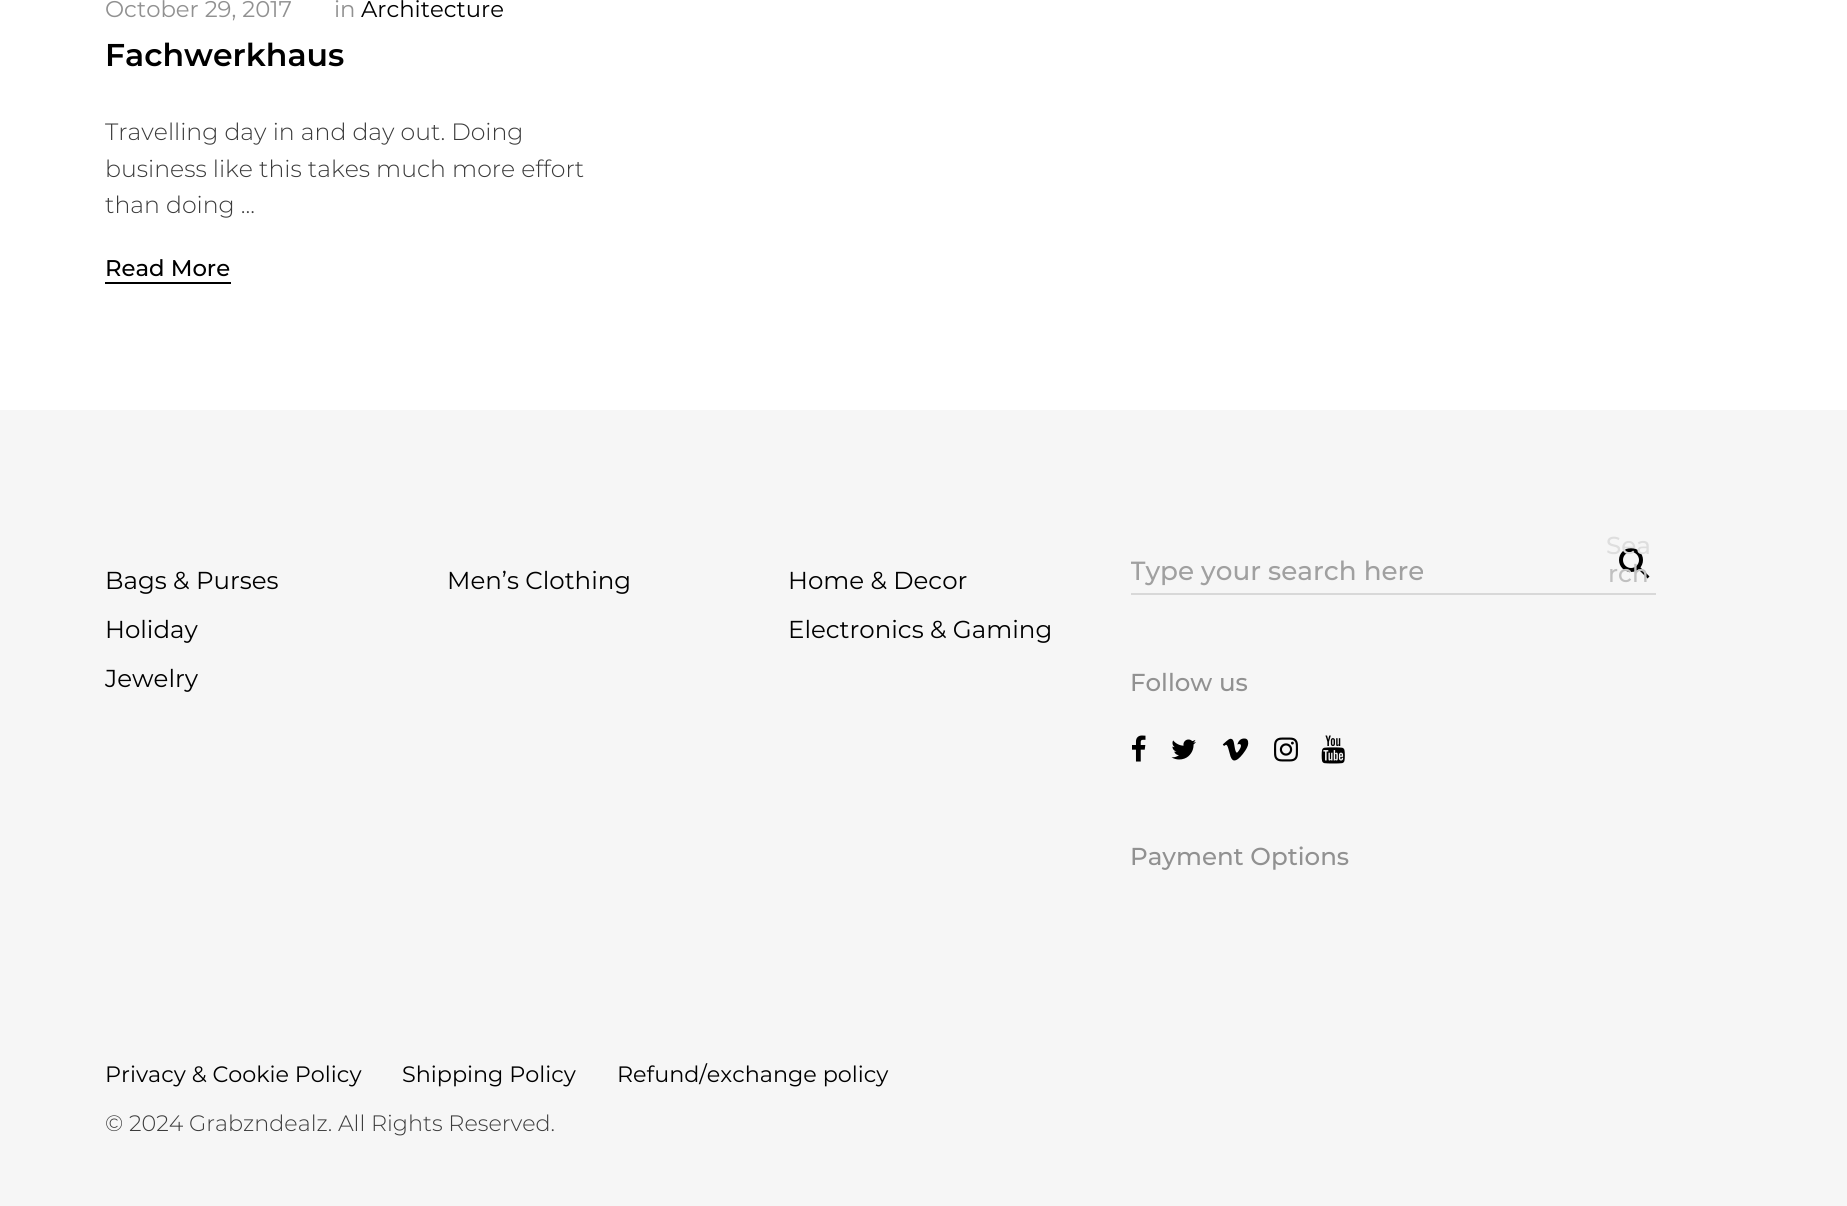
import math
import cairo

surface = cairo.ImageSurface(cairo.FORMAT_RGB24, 1847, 1206)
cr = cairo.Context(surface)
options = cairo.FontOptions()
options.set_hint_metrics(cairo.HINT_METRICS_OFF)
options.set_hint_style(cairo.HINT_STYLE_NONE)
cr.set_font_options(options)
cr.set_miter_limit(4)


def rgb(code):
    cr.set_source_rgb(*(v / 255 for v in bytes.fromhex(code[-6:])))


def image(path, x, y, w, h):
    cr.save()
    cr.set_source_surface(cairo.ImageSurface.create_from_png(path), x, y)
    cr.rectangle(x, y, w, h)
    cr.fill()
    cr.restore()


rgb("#ffffff")
cr.paint()
for x, y, w, h, color in [
    (105, 282, 126, 2, "#000000"),
    (0, 410, 1847, 796, "#f6f6f6"),
    (1131, 593, 525, 2, "#d8d8d8"),
]:
    rgb(color)
    cr.rectangle(x, y, w, h)
    cr.fill()
cr.arc(1631, 560, 10, 0, 2 * math.pi)
rgb("#000000")
cr.set_line_width(4)
cr.stroke()
cr.new_path()
cr.move_to(1637.5, 568.5)
cr.line_to(1639.5, 566.5)
cr.line_to(1649.5, 576.5)
cr.line_to(1647.5, 578.5)
cr.close_path()
cr.fill()
image("img/1.png", 1132, 735, 14, 27)
image("img/2.png", 1171, 739, 25, 21)
image("img/3.png", 1222, 738, 27, 23)
image("img/4.png", 1274, 737, 24, 25)
image("img/5.png", 1321, 735, 24, 29)
cr.select_font_face("Montserrat")
cr.set_font_size(22.75)
rgb("#919191")
cr.move_to(105, 17)
cr.show_text("October 29, 2017")
cr.move_to(334, 17)
cr.show_text("in")
rgb("#000000")
cr.move_to(361, 17)
cr.show_text("Architecture")
cr.select_font_face("Montserrat SemiBold")
cr.set_font_size(31.5)
cr.move_to(105, 66)
cr.show_text("Fachwerkhaus")
cr.select_font_face("Montserrat Light")
cr.set_font_size(23.6)
rgb("#3b3b3b")
for x, y, s in [
    (105, 140, "Travelling day in and day out. Doing"),
    (105, 177, "business like this takes much more effort"),
    (105, 213, "than doing ..."),
]:
    cr.move_to(x, y)
    cr.show_text(s)
cr.select_font_face("Montserrat Medium")
cr.set_font_size(22.75)
rgb("#000000")
cr.move_to(105, 276)
cr.show_text("Read More")
cr.select_font_face("Montserrat")
cr.set_font_size(24.5)
for x, y, s in [
    (105, 589, "Bags & Purses"),
    (105, 638, "Holiday"),
    (105, 687, "Jewelry"),
    (447, 589, "Men’s Clothing"),
    (788, 589, "Home & Decor"),
    (788, 638, "Electronics & Gaming"),
]:
    cr.move_to(x, y)
    cr.show_text(s)
cr.select_font_face("Montserrat Medium")
rgb("#dedede")
cr.move_to(1606, 554)
cr.show_text("Sea")
rgb("#c0c0c0")
cr.move_to(1608, 582)
cr.show_text("rch")
cr.save()
cr.rectangle(1131, 555, 472, 33)
cr.clip()
cr.set_font_size(26.25)
rgb("#a0a0a0")
cr.move_to(1130, 580)
cr.show_text("Type your search here")
cr.restore()
rgb("#919191")
cr.move_to(1130, 691)
cr.show_text("Follow us")
cr.move_to(1130, 865)
cr.show_text("Payment Options")
cr.select_font_face("Montserrat")
cr.set_font_size(22.3)
rgb("#000000")
for x, y, s in [
    (105, 1082, "Privacy & Cookie Policy"),
    (402, 1082, "Shipping Policy"),
    (617, 1082, "Refund/exchange policy"),
]:
    cr.move_to(x, y)
    cr.show_text(s)
cr.select_font_face("Montserrat Light")
rgb("#3b3b3b")
cr.move_to(105, 1131)
cr.show_text("© 2024 Grabzndealz. All Rights Reserved.")
surface.write_to_png("page.png")
